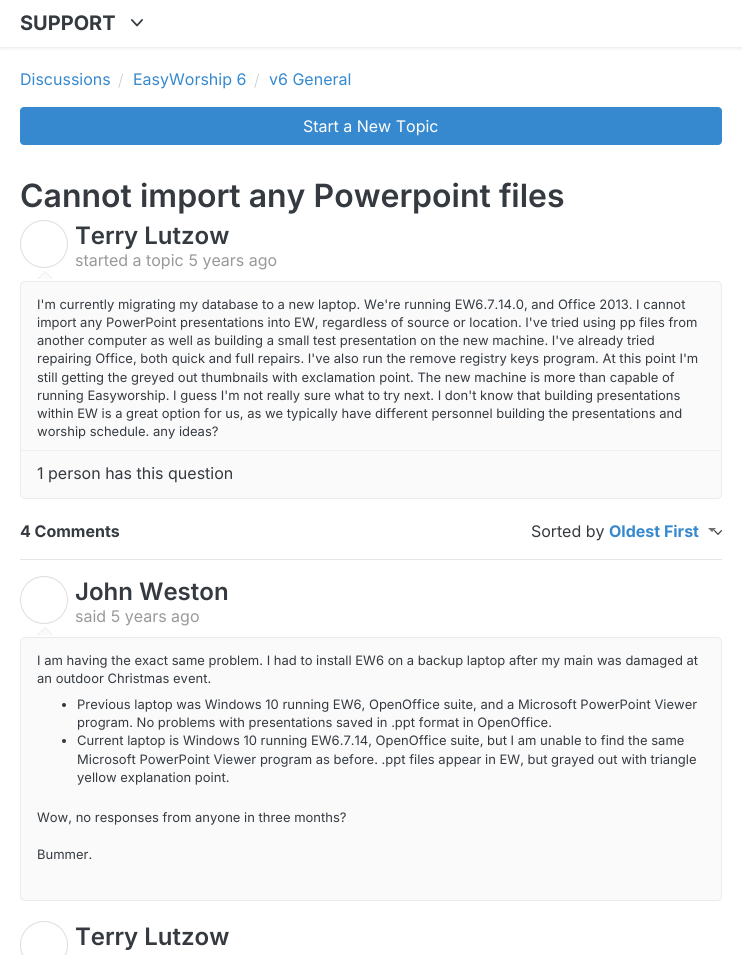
import math
import cairo

surface = cairo.ImageSurface(cairo.FORMAT_RGB24, 742, 955)
cr = cairo.Context(surface)
options = cairo.FontOptions()
options.set_hint_metrics(cairo.HINT_METRICS_OFF)
options.set_hint_style(cairo.HINT_STYLE_NONE)
cr.set_font_options(options)
cr.set_miter_limit(4)


def rgb(code):
    cr.set_source_rgb(*(v / 255 for v in bytes.fromhex(code[-6:])))


def rrect(x, y, w, h, r):
    cr.new_sub_path()
    for i, (u, v) in enumerate([(x + w - r, y + h - r), (x + r, y + h - r), (x + r, y + r), (x + w - r, y + r)]):
        cr.arc(u, v, r, i * math.pi / 2, (i + 1) * math.pi / 2)
    cr.close_path()


def soft_shadow(x, y, w, h, r, blur, alpha):
    cr.push_group_with_content(cairo.CONTENT_ALPHA)
    cr.set_operator(cairo.OPERATOR_SOURCE)
    for i in range(15, -16, -2):
        e = blur * i / 6
        if min(w, h) + 2 * e > 0:
            cr.set_source_rgba(0, 0, 0, alpha * math.erfc((i - 1) / 8.5) / 2)
            rrect(x - e, y - e, w + 2 * e, h + 2 * e, max(0, min(r + e + blur * .6, min(w, h) / 2 + e)))
            cr.fill()
    cr.mask(cr.pop_group())


def image(path, x, y, w, h):
    cr.save()
    cr.set_source_surface(cairo.ImageSurface.create_from_png(path), x, y)
    cr.rectangle(x, y, w, h)
    cr.fill()
    cr.restore()


rgb("#ffffff")
cr.paint()
cr.save()
cr.rectangle(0, 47, 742, 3)
cr.clip()
rgb("#000000")
soft_shadow(-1, -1, 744, 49, 0, 2.5, 0.1)
cr.restore()
image("img/1.png", 131, 19, 12, 8)
rgb("#3689cf")
rrect(20.5, 107.5, 701, 37, 3.5)
cr.fill_preserve()
cr.set_line_width(1)
cr.stroke()
cr.arc(44, 244, 23.5, 0, 2 * math.pi)
rgb("#dddddd")
cr.stroke()
rgb("#ebebeb")
cr.new_path()
cr.move_to(53, 279)
cr.line_to(37, 279)
cr.line_to(45, 271)
cr.close_path()
cr.fill()
rgb("#fafafa")
cr.new_path()
cr.move_to(52, 279)
cr.line_to(38, 279)
cr.line_to(45, 272)
cr.close_path()
cr.fill()
rrect(20.5, 281.5, 701, 217, 4.5)
cr.fill_preserve()
rgb("#ebebeb")
cr.stroke()
rgb("#efefef")
cr.rectangle(21, 450, 700, 1)
cr.fill()
rgb("#6f6f6f")
cr.new_path()
cr.move_to(708, 528)
cr.line_to(716, 528)
cr.line_to(712, 532)
cr.close_path()
cr.fill()
image("img/2.png", 714, 530, 8, 5)
rgb("#e6e6e6")
cr.rectangle(20, 559, 702, 1)
cr.fill()
cr.arc(44, 600, 23.5, 0, 2 * math.pi)
rgb("#dddddd")
cr.stroke()
rgb("#ebebeb")
cr.new_path()
cr.move_to(53, 635)
cr.line_to(37, 635)
cr.line_to(45, 627)
cr.close_path()
cr.fill()
rgb("#fafafa")
cr.new_path()
cr.move_to(52, 635)
cr.line_to(38, 635)
cr.line_to(45, 628)
cr.close_path()
cr.fill()
rrect(20.5, 637.5, 701, 263, 4.5)
cr.fill_preserve()
rgb("#ebebeb")
cr.stroke()
rgb("#343a40")
cr.arc(64, 705, 2, 0, 2 * math.pi)
cr.fill()
cr.arc(64, 741, 2, 0, 2 * math.pi)
cr.fill()
cr.arc(44, 945, 23.5, 0, 2 * math.pi)
rgb("#dddddd")
cr.stroke()
cr.select_font_face("Inter", cairo.FONT_SLANT_NORMAL, cairo.FONT_WEIGHT_BOLD)
cr.set_font_size(20)
rgb("#343a40")
cr.move_to(20, 30)
cr.show_text("SUPPORT")
cr.select_font_face("Inter")
cr.set_font_size(16)
rgb("#3689cf")
cr.move_to(20, 85)
cr.show_text("Discussions")
cr.select_font_face("Inter ExtraLight")
rgb("#bbbbbb")
cr.move_to(118, 86)
cr.show_text("/")
cr.select_font_face("Inter")
rgb("#3689cf")
cr.move_to(133, 85)
cr.show_text("EasyWorship 6")
cr.select_font_face("Inter ExtraLight")
rgb("#bbbbbb")
cr.move_to(254, 86)
cr.show_text("/")
cr.select_font_face("Inter")
rgb("#3689cf")
cr.move_to(269, 85)
cr.show_text("v6 General")
rgb("#ffffff")
cr.move_to(303, 132)
cr.show_text("Start a New Topic")
cr.select_font_face("Inter SemiBold")
cr.set_font_size(32)
rgb("#343a40")
cr.move_to(20, 207)
cr.show_text("Cannot import any Powerpoint files")
cr.set_font_size(24)
cr.move_to(75, 244)
cr.show_text("Terry Lutzow")
cr.select_font_face("Inter")
cr.set_font_size(16)
rgb("#999999")
cr.move_to(75, 266)
cr.show_text("started a topic 5 years ago")
cr.set_font_size(13)
rgb("#343a40")
for x, y, s in [
    (37, 309, "I'm currently migrating my database to a new laptop. We're running EW6.7.14.0, and Office 2013. I cannot"),
    (37, 327, "import any PowerPoint presentations into EW, regardless of source or location. I've tried using pp files from"),
    (37, 345, "another computer as well as building a small test presentation on the new machine. I've already tried"),
    (37, 363, "repairing Office, both quick and full repairs. I've also run the remove registry keys program. At this point I'm"),
    (37, 382, "still getting the greyed out thumbnails with exclamation point. The new machine is more than capable of"),
    (37, 400, "running Easyworship. I guess I'm not really sure what to try next. I don't know that building presentations"),
    (37, 418, "within EW is a great option for us, as we typically have different personnel building the presentations and"),
    (37, 436, "worship schedule. any ideas?"),
]:
    cr.move_to(x, y)
    cr.show_text(s)
cr.set_font_size(16)
cr.move_to(37, 479)
cr.show_text("1 person has this question")
cr.select_font_face("Inter", cairo.FONT_SLANT_NORMAL, cairo.FONT_WEIGHT_BOLD)
cr.move_to(20, 537)
cr.show_text("4 Comments")
cr.select_font_face("Inter")
cr.move_to(531, 537)
cr.show_text("Sorted by")
cr.select_font_face("Inter", cairo.FONT_SLANT_NORMAL, cairo.FONT_WEIGHT_BOLD)
rgb("#3689cf")
cr.move_to(609, 537)
cr.show_text("Oldest First")
cr.select_font_face("Inter SemiBold")
cr.set_font_size(24)
rgb("#343a40")
cr.move_to(75, 600)
cr.show_text("John Weston")
cr.select_font_face("Inter")
cr.set_font_size(16)
rgb("#999999")
cr.move_to(75, 622)
cr.show_text("said 5 years ago")
cr.set_font_size(13)
rgb("#343a40")
for x, y, s in [
    (37, 665, "I am having the exact same problem. I had to install EW6 on a backup laptop after my main was damaged at"),
    (37, 683, "an outdoor Christmas event."),
    (77, 709, "Previous laptop was Windows 10 running EW6, OpenOffice suite, and a Microsoft PowerPoint Viewer"),
    (77, 727, "program. No problems with presentations saved in .ppt format in OpenOffice."),
    (77, 745, "Current laptop is Windows 10 running EW6.7.14, OpenOffice suite, but I am unable to find the same"),
    (77, 764, "Microsoft PowerPoint Viewer program as before. .ppt files appear in EW, but grayed out with triangle"),
    (77, 782, "yellow explanation point."),
    (37, 822, "Wow, no responses from anyone in three months?"),
    (37, 859, "Bummer."),
]:
    cr.move_to(x, y)
    cr.show_text(s)
cr.select_font_face("Inter SemiBold")
cr.set_font_size(24)
cr.move_to(75, 945)
cr.show_text("Terry Lutzow")
surface.write_to_png("page.png")
